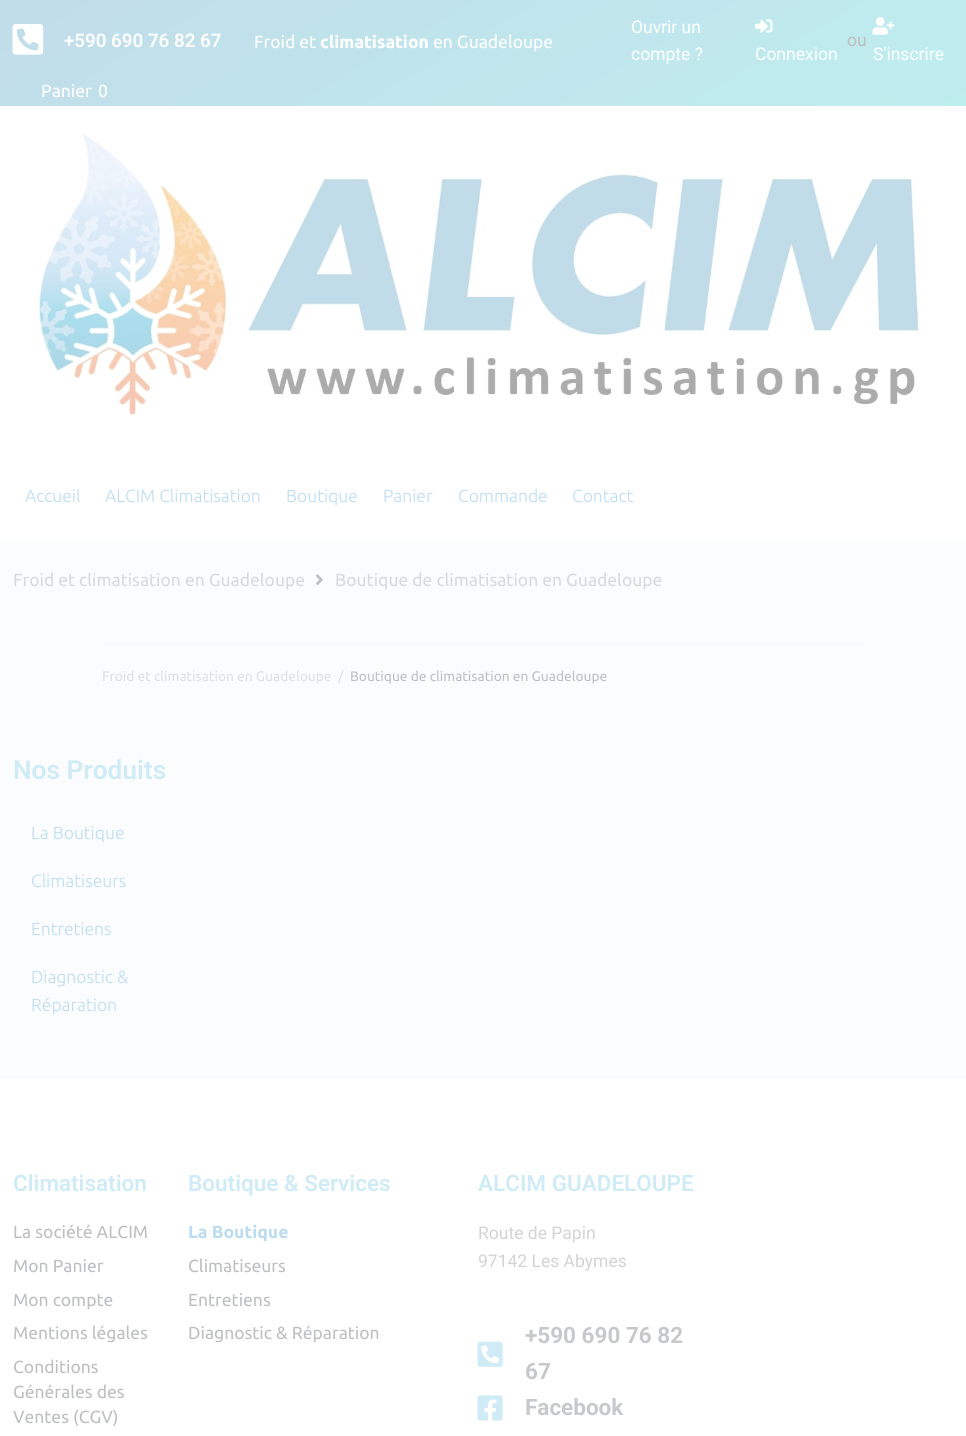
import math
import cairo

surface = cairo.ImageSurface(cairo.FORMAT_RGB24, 966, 1436)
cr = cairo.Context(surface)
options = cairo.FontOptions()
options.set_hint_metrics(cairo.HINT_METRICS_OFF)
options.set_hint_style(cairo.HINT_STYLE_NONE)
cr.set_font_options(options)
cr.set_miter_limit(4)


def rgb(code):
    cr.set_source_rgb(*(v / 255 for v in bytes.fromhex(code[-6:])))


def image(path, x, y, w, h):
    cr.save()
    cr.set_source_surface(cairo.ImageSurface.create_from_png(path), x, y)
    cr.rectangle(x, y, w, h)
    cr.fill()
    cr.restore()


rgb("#fbfcfd")
cr.paint()
gradient = cairo.LinearGradient(339, -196, 627, 302)
gradient.add_color_stop_rgba(0, 0.757, 0.863, 0.914, 1)
gradient.add_color_stop_rgba(1, 0.749, 0.933, 0.937, 1)
cr.set_source(gradient)
cr.rectangle(0, 0, 966, 106)
cr.fill()
image("img/1.png", 12, 24, 32, 31)
image("img/2.png", 755, 19, 18, 14)
image("img/3.png", 872, 17, 23, 18)
rgb("#ffffff")
cr.rectangle(0, 106, 966, 435)
cr.fill()
image("img/4.png", 34, 134, 893, 285)
image("img/5.png", 315, 574, 8, 12)
rgb("#f8f9f9")
cr.rectangle(103, 644, 762, 1)
cr.fill()
rgb("#ffffff")
cr.rectangle(0, 1079, 966, 357)
cr.fill()
image("img/6.png", 477, 1341, 26, 26)
image("img/7.png", 477, 1395, 26, 26)
cr.select_font_face("Roboto SemiBold")
cr.set_font_size(18.75)
cr.move_to(64, 47)
cr.show_text("+590 690 76 82 67")
cr.select_font_face("Ubuntu")
cr.set_font_size(17.5)
cr.move_to(254, 48)
cr.show_text("Froid et")
cr.select_font_face("Ubuntu", cairo.FONT_SLANT_NORMAL, cairo.FONT_WEIGHT_BOLD)
cr.move_to(320, 48)
cr.show_text("climatisation")
cr.select_font_face("Ubuntu")
cr.move_to(433, 48)
cr.show_text("en Guadeloupe")
cr.select_font_face("Roboto")
for x, y, s in [
    (631, 33, "Ouvrir un"),
    (631, 60, "compte ?"),
    (755, 60, "Connexion"),
]:
    cr.move_to(x, y)
    cr.show_text(s)
rgb("#bebfc1")
cr.move_to(847, 46)
cr.show_text("ou")
rgb("#ffffff")
cr.move_to(873, 60)
cr.show_text("S'inscrire")
cr.select_font_face("Ubuntu")
cr.move_to(41, 97)
cr.show_text("Panier")
cr.move_to(98, 97)
cr.show_text("0")
cr.select_font_face("Ubuntu Light")
rgb("#bddcef")
for x, y, s in [
    (25, 502, "Accueil"),
    (105, 502, "ALCIM Climatisation"),
    (286, 502, "Boutique"),
    (383, 502, "Panier"),
    (458, 502, "Commande"),
    (572, 502, "Contact"),
]:
    cr.move_to(x, y)
    cr.show_text(s)
cr.select_font_face("Ubuntu")
rgb("#d7dadd")
cr.move_to(13, 586)
cr.show_text("Froid et climatisation en Guadeloupe")
cr.move_to(335, 586)
cr.show_text("Boutique de climatisation en Guadeloupe")
cr.set_font_size(13.75)
rgb("#e0e0e1")
cr.move_to(102, 681)
cr.show_text("Froid et climatisation en Guadeloupe")
cr.move_to(338, 681)
cr.show_text("/")
rgb("#bebfc1")
cr.move_to(350, 681)
cr.show_text("Boutique de climatisation en Guadeloupe")
cr.select_font_face("Roboto SemiBold")
cr.set_font_size(26.25)
rgb("#cfebf6")
cr.move_to(13, 779)
cr.show_text("Nos Produits")
cr.select_font_face("Ubuntu Light")
cr.set_font_size(17.5)
rgb("#bddcef")
for x, y, s in [
    (31, 839, "La Boutique"),
    (31, 887, "Climatiseurs"),
    (31, 935, "Entretiens"),
    (31, 983, "Diagnostic &"),
    (31, 1011, "Réparation"),
]:
    cr.move_to(x, y)
    cr.show_text(s)
cr.select_font_face("Roboto SemiBold")
cr.set_font_size(22.5)
rgb("#cfebf6")
cr.move_to(13, 1191)
cr.show_text("Climatisation")
cr.select_font_face("Ubuntu")
cr.set_font_size(17.5)
rgb("#bebfc1")
for x, y, s in [
    (13, 1238, "La société ALCIM"),
    (13, 1272, "Mon Panier"),
    (13, 1306, "Mon compte"),
    (13, 1339, "Mentions légales"),
    (13, 1373, "Conditions"),
    (13, 1398, "Générales des"),
    (13, 1423, "Ventes (CGV)"),
]:
    cr.move_to(x, y)
    cr.show_text(s)
cr.select_font_face("Roboto SemiBold")
cr.set_font_size(22.5)
rgb("#cfebf6")
cr.move_to(188, 1191)
cr.show_text("Boutique & Services")
cr.select_font_face("Ubuntu", cairo.FONT_SLANT_NORMAL, cairo.FONT_WEIGHT_BOLD)
cr.set_font_size(17.5)
rgb("#bddcef")
cr.move_to(188, 1238)
cr.show_text("La Boutique")
cr.select_font_face("Ubuntu")
rgb("#bebfc1")
for x, y, s in [
    (188, 1272, "Climatiseurs"),
    (188, 1306, "Entretiens"),
    (188, 1339, "Diagnostic & Réparation"),
]:
    cr.move_to(x, y)
    cr.show_text(s)
cr.select_font_face("Roboto SemiBold")
cr.set_font_size(22.5)
rgb("#cfebf6")
cr.move_to(478, 1191)
cr.show_text("ALCIM GUADELOUPE")
cr.select_font_face("Roboto")
cr.set_font_size(17.5)
rgb("#d3d3d3")
cr.move_to(478, 1239)
cr.show_text("Route de Papin")
cr.move_to(478, 1267)
cr.show_text("97142 Les Abymes")
cr.select_font_face("Roboto", cairo.FONT_SLANT_NORMAL, cairo.FONT_WEIGHT_BOLD)
cr.set_font_size(22.5)
rgb("#c7c8ca")
for x, y, s in [
    (525, 1343, "+590 690 76 82"),
    (525, 1379, "67"),
    (525, 1415, "Facebook"),
]:
    cr.move_to(x, y)
    cr.show_text(s)
surface.write_to_png("page.png")
